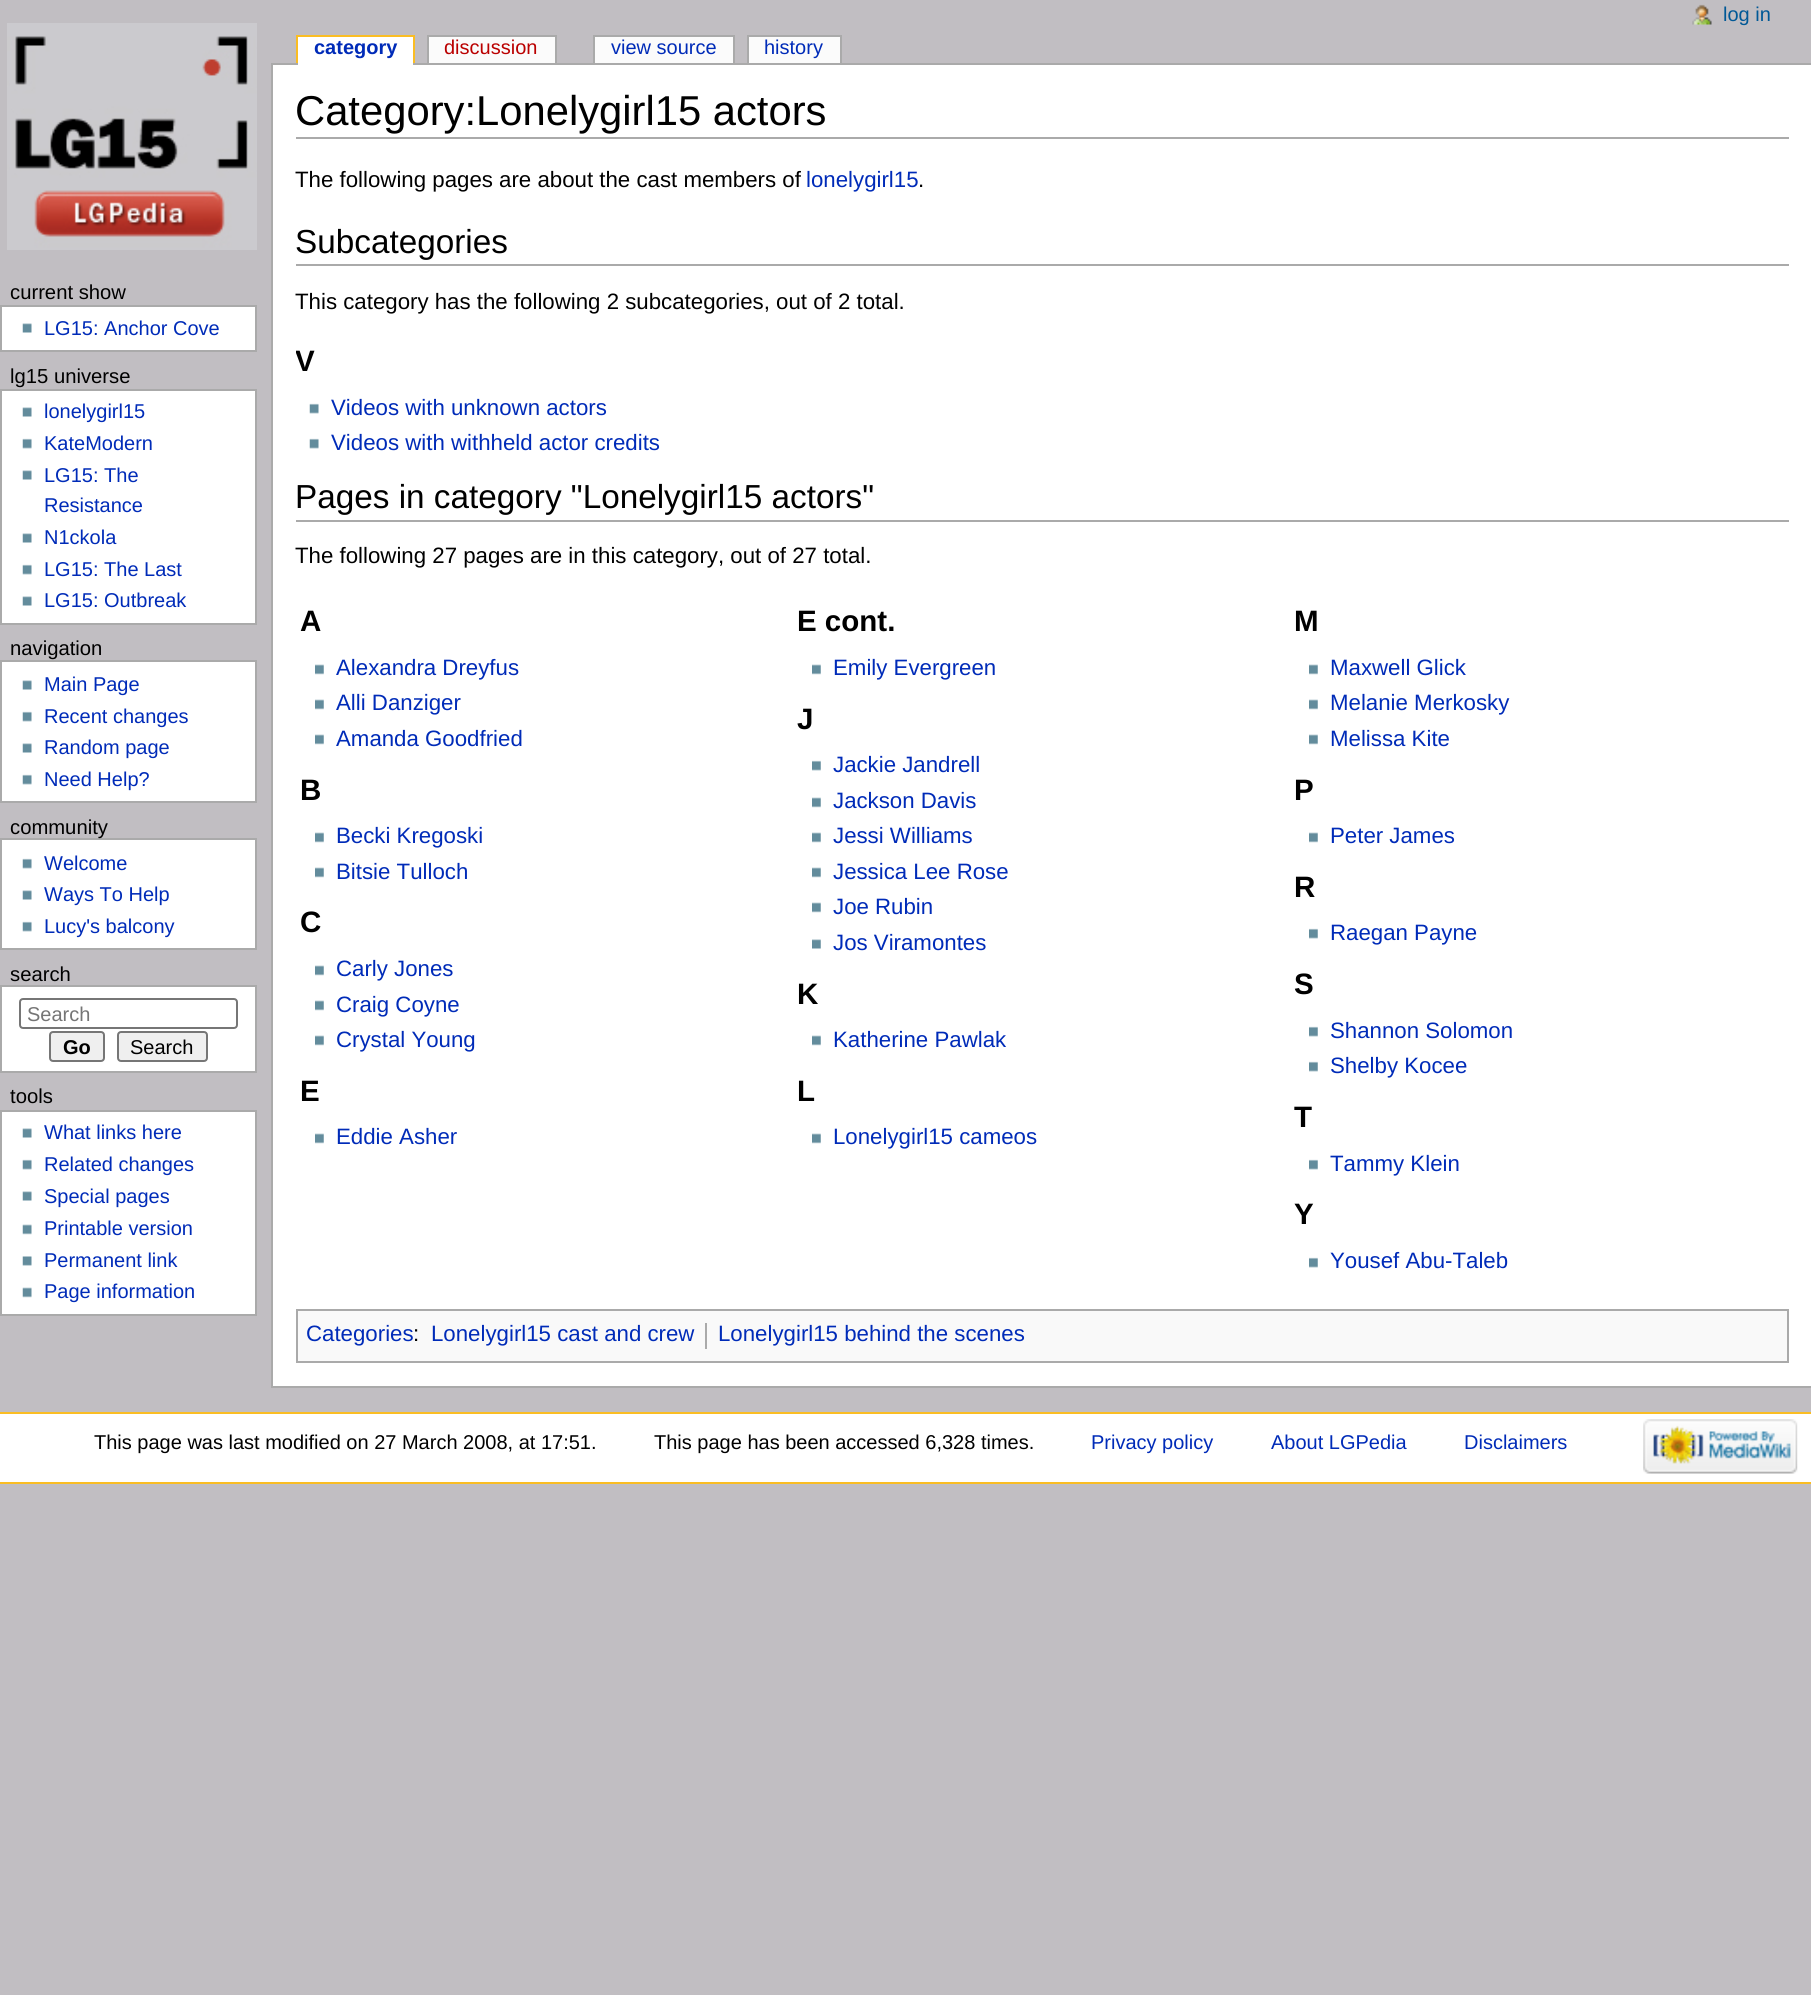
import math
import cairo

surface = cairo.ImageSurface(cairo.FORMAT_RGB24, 1811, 1995)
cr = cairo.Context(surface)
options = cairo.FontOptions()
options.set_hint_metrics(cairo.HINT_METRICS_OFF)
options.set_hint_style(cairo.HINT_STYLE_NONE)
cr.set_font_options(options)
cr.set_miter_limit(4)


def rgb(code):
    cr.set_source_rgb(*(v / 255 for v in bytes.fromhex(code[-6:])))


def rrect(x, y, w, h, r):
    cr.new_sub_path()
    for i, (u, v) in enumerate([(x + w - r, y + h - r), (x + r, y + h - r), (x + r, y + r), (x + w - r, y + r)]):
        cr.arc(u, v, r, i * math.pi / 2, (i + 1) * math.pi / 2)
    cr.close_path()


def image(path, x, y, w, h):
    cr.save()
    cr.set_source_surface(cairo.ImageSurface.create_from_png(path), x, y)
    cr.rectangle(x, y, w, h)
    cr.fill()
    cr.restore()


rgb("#c1bec2")
cr.paint()
image("img/1.png", 1692, 4, 20, 21)
image("img/2.png", 7, 23, 250, 227)
for x, y, w, h, color in [
    (296, 35, 119, 2, "#fabd23"),
    (413, 35, 2, 28, "#fabd23"),
    (296, 35, 2, 28, "#fabd23"),
    (271, 63, 1540, 2, "#aaaaaa"),
    (298, 37, 115, 28, "#ffffff"),
    (427, 35, 130, 2, "#aaaaaa"),
    (555, 35, 2, 28, "#aaaaaa"),
    (427, 35, 2, 28, "#aaaaaa"),
    (429, 37, 126, 26, "#fbfbfb"),
    (593, 35, 142, 2, "#aaaaaa"),
    (733, 35, 2, 28, "#aaaaaa"),
    (593, 35, 2, 28, "#aaaaaa"),
    (595, 37, 138, 26, "#fbfbfb"),
    (747, 35, 95, 2, "#aaaaaa"),
    (840, 35, 2, 28, "#aaaaaa"),
    (747, 35, 2, 28, "#aaaaaa"),
    (749, 37, 91, 26, "#fbfbfb"),
]:
    rgb(color)
    cr.rectangle(x, y, w, h)
    cr.fill()
rgb("#ffffff")
cr.rectangle(1, 306, 255, 45)
cr.fill_preserve()
rgb("#aaaaaa")
cr.stroke()
image("img/3.png", 22, 323, 10, 10)
rgb("#ffffff")
cr.rectangle(1, 390, 255, 234)
cr.fill_preserve()
rgb("#aaaaaa")
cr.stroke()
image("img/3.png", 22, 407, 10, 10)
image("img/4.png", 22, 438, 10, 11)
image("img/3.png", 22, 470, 10, 10)
image("img/3.png", 22, 533, 10, 10)
image("img/4.png", 22, 564, 10, 11)
image("img/3.png", 22, 596, 10, 10)
rgb("#ffffff")
cr.rectangle(1, 661, 255, 141)
cr.fill_preserve()
rgb("#aaaaaa")
cr.stroke()
image("img/3.png", 22, 680, 10, 10)
image("img/4.png", 22, 711, 10, 11)
image("img/3.png", 22, 743, 10, 10)
image("img/4.png", 22, 774, 10, 11)
rgb("#ffffff")
cr.rectangle(1, 839, 255, 110)
cr.fill_preserve()
rgb("#aaaaaa")
cr.stroke()
image("img/4.png", 22, 858, 10, 11)
image("img/3.png", 22, 890, 10, 10)
image("img/4.png", 22, 921, 10, 11)
rgb("#ffffff")
cr.rectangle(1, 986, 255, 86)
cr.fill_preserve()
rgb("#aaaaaa")
cr.stroke()
rrect(20, 999, 217, 29, 3)
rgb("#767676")
cr.stroke()
rgb("#efefef")
rrect(50, 1032, 54, 29, 3)
cr.fill_preserve()
rgb("#767676")
cr.stroke()
rgb("#efefef")
rrect(118, 1032, 89, 29, 3)
cr.fill_preserve()
rgb("#767676")
cr.stroke()
rgb("#ffffff")
cr.rectangle(1, 1111, 255, 204)
cr.fill_preserve()
rgb("#aaaaaa")
cr.stroke()
image("img/3.png", 22, 1128, 10, 10)
image("img/4.png", 22, 1159, 10, 11)
image("img/3.png", 22, 1191, 10, 10)
image("img/5.png", 22, 1224, 10, 11)
image("img/6.png", 22, 1256, 10, 10)
image("img/5.png", 22, 1287, 10, 11)
for x, y, w, h, color in [
    (273, 65, 1538, 1321, "#ffffff"),
    (271, 1386, 1540, 2, "#aaaaaa"),
    (271, 63, 2, 1325, "#aaaaaa"),
    (296, 137, 1493, 2, "#aaaaaa"),
    (296, 264, 1493, 2, "#aaaaaa"),
]:
    rgb(color)
    cr.rectangle(x, y, w, h)
    cr.fill()
image("img/4.png", 309, 403, 10, 11)
image("img/4.png", 309, 438, 10, 11)
cr.rectangle(296, 520, 1493, 2)
cr.fill()
image("img/7.png", 315, 664, 9, 11)
image("img/7.png", 315, 699, 9, 11)
image("img/7.png", 315, 734, 9, 11)
image("img/7.png", 315, 832, 9, 11)
image("img/7.png", 315, 867, 9, 11)
image("img/7.png", 315, 965, 9, 11)
image("img/7.png", 315, 1000, 9, 11)
image("img/7.png", 315, 1035, 9, 11)
image("img/7.png", 315, 1133, 9, 11)
image("img/7.png", 812, 664, 9, 11)
image("img/8.png", 812, 760, 9, 11)
image("img/7.png", 812, 797, 9, 11)
image("img/7.png", 812, 832, 9, 11)
image("img/7.png", 812, 867, 9, 11)
image("img/7.png", 812, 902, 9, 11)
image("img/9.png", 812, 939, 9, 10)
image("img/7.png", 812, 1035, 9, 11)
image("img/7.png", 812, 1133, 9, 11)
image("img/7.png", 1309, 664, 9, 11)
image("img/7.png", 1309, 699, 9, 11)
image("img/7.png", 1309, 734, 9, 11)
image("img/7.png", 1309, 832, 9, 11)
image("img/8.png", 1309, 928, 9, 11)
image("img/8.png", 1309, 1026, 9, 11)
image("img/8.png", 1309, 1061, 9, 11)
image("img/8.png", 1309, 1159, 9, 11)
image("img/8.png", 1309, 1257, 9, 11)
rgb("#f9f9f9")
cr.rectangle(297, 1310, 1491, 52)
cr.fill_preserve()
rgb("#aaaaaa")
cr.stroke()
for x, y, w, h, color in [
    (705, 1323, 2, 26, "#aaaaaa"),
    (0, 1414, 1811, 68, "#ffffff"),
    (0, 1412, 1811, 2, "#fabd23"),
    (0, 1482, 1811, 2, "#fabd23"),
]:
    rgb(color)
    cr.rectangle(x, y, w, h)
    cr.fill()
image("img/10.png", 1643, 1419, 155, 55)
cr.select_font_face("Liberation Sans")
cr.set_font_size(20)
rgb("#005896")
cr.move_to(1723, 21)
cr.show_text("log in")
cr.select_font_face("Liberation Sans", cairo.FONT_SLANT_NORMAL, cairo.FONT_WEIGHT_BOLD)
rgb("#002bb8")
cr.move_to(314, 54)
cr.show_text("category")
cr.select_font_face("Liberation Sans")
rgb("#ba0000")
cr.move_to(444, 54)
cr.show_text("discussion")
rgb("#002bb8")
cr.move_to(611, 54)
cr.show_text("view source")
cr.move_to(764, 54)
cr.show_text("history")
cr.set_font_size(20.25)
rgb("#000000")
cr.move_to(10, 299)
cr.show_text("current show")
cr.set_font_size(20)
rgb("#002bb8")
cr.move_to(44, 335)
cr.show_text("LG15: Anchor Cove")
cr.set_font_size(20.25)
rgb("#000000")
cr.move_to(10, 383)
cr.show_text("lg15 universe")
cr.set_font_size(20)
rgb("#002bb8")
for x, y, s in [
    (44, 418, "lonelygirl15"),
    (44, 450, "KateModern"),
    (44, 482, "LG15: The"),
    (44, 512, "Resistance"),
    (44, 544, "N1ckola"),
    (44, 576, "LG15: The Last"),
    (44, 607, "LG15: Outbreak"),
]:
    cr.move_to(x, y)
    cr.show_text(s)
cr.set_font_size(20.25)
rgb("#000000")
cr.move_to(10, 655)
cr.show_text("navigation")
cr.set_font_size(20)
rgb("#002bb8")
for x, y, s in [
    (44, 691, "Main Page"),
    (44, 723, "Recent changes"),
    (44, 754, "Random page"),
    (44, 786, "Need Help?"),
]:
    cr.move_to(x, y)
    cr.show_text(s)
cr.set_font_size(20.25)
rgb("#000000")
cr.move_to(10, 834)
cr.show_text("community")
cr.set_font_size(20)
rgb("#002bb8")
for x, y, s in [
    (44, 870, "Welcome"),
    (44, 901, "Ways To Help"),
    (44, 933, "Lucy's balcony"),
]:
    cr.move_to(x, y)
    cr.show_text(s)
cr.set_font_size(20.25)
rgb("#000000")
cr.move_to(10, 981)
cr.show_text("search")
cr.set_font_size(20)
rgb("#757575")
cr.move_to(27, 1021)
cr.show_text("Search")
cr.select_font_face("Liberation Sans", cairo.FONT_SLANT_NORMAL, cairo.FONT_WEIGHT_BOLD)
rgb("#000000")
cr.move_to(63, 1054)
cr.show_text("Go")
cr.select_font_face("Liberation Sans")
cr.move_to(130, 1054)
cr.show_text("Search")
cr.set_font_size(20.25)
cr.move_to(10, 1103)
cr.show_text("tools")
cr.set_font_size(20)
rgb("#002bb8")
for x, y, s in [
    (44, 1139, "What links here"),
    (44, 1171, "Related changes"),
    (44, 1203, "Special pages"),
    (44, 1235, "Printable version"),
    (44, 1267, "Permanent link"),
    (44, 1298, "Page information"),
]:
    cr.move_to(x, y)
    cr.show_text(s)
cr.set_font_size(41.75)
rgb("#000000")
cr.move_to(295, 125)
cr.show_text("Category:Lonelygirl15 actors")
cr.set_font_size(22.25)
cr.move_to(295, 187)
cr.show_text("The following pages are about the cast members of")
rgb("#002bb8")
cr.move_to(806, 187)
cr.show_text("lonelygirl15")
rgb("#000000")
cr.move_to(918, 187)
cr.show_text(".")
cr.set_font_size(33.3)
cr.move_to(295, 253)
cr.show_text("Subcategories")
cr.set_font_size(22.25)
cr.move_to(295, 309)
cr.show_text("This category has the following 2 subcategories, out of 2 total.")
cr.save()
cr.rectangle(296, 331, 1493, 52)
cr.clip()
cr.select_font_face("Liberation Sans", cairo.FONT_SLANT_NORMAL, cairo.FONT_WEIGHT_BOLD)
cr.set_font_size(29.5)
cr.move_to(295, 371)
cr.show_text("V")
cr.restore()
rgb("#002bb8")
cr.move_to(331, 415)
cr.show_text("Videos with unknown actors")
cr.move_to(331, 450)
cr.show_text("Videos with withheld actor credits")
cr.set_font_size(33.3)
rgb("#000000")
cr.move_to(295, 508)
cr.show_text("Pages in category \"Lonelygirl15 actors\"")
cr.set_font_size(22.25)
cr.move_to(295, 563)
cr.show_text("The following 27 pages are in this category, out of 27 total.")
cr.select_font_face("Liberation Sans", cairo.FONT_SLANT_NORMAL, cairo.FONT_WEIGHT_BOLD)
cr.set_font_size(29.5)
cr.move_to(300, 631)
cr.show_text("A")
cr.select_font_face("Liberation Sans")
cr.set_font_size(22.25)
rgb("#002bb8")
for x, y, s in [
    (336, 675, "Alexandra Dreyfus"),
    (336, 710, "Alli Danziger"),
    (336, 746, "Amanda Goodfried"),
]:
    cr.move_to(x, y)
    cr.show_text(s)
cr.select_font_face("Liberation Sans", cairo.FONT_SLANT_NORMAL, cairo.FONT_WEIGHT_BOLD)
cr.set_font_size(29.5)
rgb("#000000")
cr.move_to(300, 800)
cr.show_text("B")
cr.select_font_face("Liberation Sans")
cr.set_font_size(22.25)
rgb("#002bb8")
cr.move_to(336, 843)
cr.show_text("Becki Kregoski")
cr.move_to(336, 879)
cr.show_text("Bitsie Tulloch")
cr.select_font_face("Liberation Sans", cairo.FONT_SLANT_NORMAL, cairo.FONT_WEIGHT_BOLD)
cr.set_font_size(29.5)
rgb("#000000")
cr.move_to(300, 932)
cr.show_text("C")
cr.select_font_face("Liberation Sans")
cr.set_font_size(22.25)
rgb("#002bb8")
for x, y, s in [
    (336, 976, "Carly Jones"),
    (336, 1012, "Craig Coyne"),
    (336, 1047, "Crystal Young"),
]:
    cr.move_to(x, y)
    cr.show_text(s)
cr.select_font_face("Liberation Sans", cairo.FONT_SLANT_NORMAL, cairo.FONT_WEIGHT_BOLD)
cr.set_font_size(29.5)
rgb("#000000")
cr.move_to(300, 1101)
cr.show_text("E")
cr.select_font_face("Liberation Sans")
cr.set_font_size(22.25)
rgb("#002bb8")
cr.move_to(336, 1144)
cr.show_text("Eddie Asher")
cr.select_font_face("Liberation Sans", cairo.FONT_SLANT_NORMAL, cairo.FONT_WEIGHT_BOLD)
cr.set_font_size(29.5)
rgb("#000000")
cr.move_to(797, 631)
cr.show_text("E cont.")
cr.select_font_face("Liberation Sans")
cr.set_font_size(22.25)
rgb("#002bb8")
cr.move_to(833, 675)
cr.show_text("Emily Evergreen")
cr.select_font_face("Liberation Sans", cairo.FONT_SLANT_NORMAL, cairo.FONT_WEIGHT_BOLD)
cr.set_font_size(29.5)
rgb("#000000")
cr.move_to(797, 729)
cr.show_text("J")
cr.select_font_face("Liberation Sans")
cr.set_font_size(22.25)
rgb("#002bb8")
for x, y, s in [
    (833, 772, "Jackie Jandrell"),
    (833, 808, "Jackson Davis"),
    (833, 843, "Jessi Williams"),
    (833, 879, "Jessica Lee Rose"),
    (833, 914, "Joe Rubin"),
    (833, 950, "Jos Viramontes"),
]:
    cr.move_to(x, y)
    cr.show_text(s)
cr.select_font_face("Liberation Sans", cairo.FONT_SLANT_NORMAL, cairo.FONT_WEIGHT_BOLD)
cr.set_font_size(29.5)
rgb("#000000")
cr.move_to(797, 1004)
cr.show_text("K")
cr.select_font_face("Liberation Sans")
cr.set_font_size(22.25)
rgb("#002bb8")
cr.move_to(833, 1047)
cr.show_text("Katherine Pawlak")
cr.select_font_face("Liberation Sans", cairo.FONT_SLANT_NORMAL, cairo.FONT_WEIGHT_BOLD)
cr.set_font_size(29.5)
rgb("#000000")
cr.move_to(797, 1101)
cr.show_text("L")
cr.select_font_face("Liberation Sans")
cr.set_font_size(22.25)
rgb("#002bb8")
cr.move_to(833, 1144)
cr.show_text("Lonelygirl15 cameos")
cr.select_font_face("Liberation Sans", cairo.FONT_SLANT_NORMAL, cairo.FONT_WEIGHT_BOLD)
cr.set_font_size(29.5)
rgb("#000000")
cr.move_to(1294, 631)
cr.show_text("M")
cr.select_font_face("Liberation Sans")
cr.set_font_size(22.25)
rgb("#002bb8")
for x, y, s in [
    (1330, 675, "Maxwell Glick"),
    (1330, 710, "Melanie Merkosky"),
    (1330, 746, "Melissa Kite"),
]:
    cr.move_to(x, y)
    cr.show_text(s)
cr.select_font_face("Liberation Sans", cairo.FONT_SLANT_NORMAL, cairo.FONT_WEIGHT_BOLD)
cr.set_font_size(29.5)
rgb("#000000")
cr.move_to(1294, 800)
cr.show_text("P")
cr.select_font_face("Liberation Sans")
cr.set_font_size(22.25)
rgb("#002bb8")
cr.move_to(1330, 843)
cr.show_text("Peter James")
cr.select_font_face("Liberation Sans", cairo.FONT_SLANT_NORMAL, cairo.FONT_WEIGHT_BOLD)
cr.set_font_size(29.5)
rgb("#000000")
cr.move_to(1294, 897)
cr.show_text("R")
cr.select_font_face("Liberation Sans")
cr.set_font_size(22.25)
rgb("#002bb8")
cr.move_to(1330, 940)
cr.show_text("Raegan Payne")
cr.select_font_face("Liberation Sans", cairo.FONT_SLANT_NORMAL, cairo.FONT_WEIGHT_BOLD)
cr.set_font_size(29.5)
rgb("#000000")
cr.move_to(1294, 994)
cr.show_text("S")
cr.select_font_face("Liberation Sans")
cr.set_font_size(22.25)
rgb("#002bb8")
cr.move_to(1330, 1038)
cr.show_text("Shannon Solomon")
cr.move_to(1330, 1073)
cr.show_text("Shelby Kocee")
cr.select_font_face("Liberation Sans", cairo.FONT_SLANT_NORMAL, cairo.FONT_WEIGHT_BOLD)
cr.set_font_size(29.5)
rgb("#000000")
cr.move_to(1294, 1127)
cr.show_text("T")
cr.select_font_face("Liberation Sans")
cr.set_font_size(22.25)
rgb("#002bb8")
cr.move_to(1330, 1171)
cr.show_text("Tammy Klein")
cr.select_font_face("Liberation Sans", cairo.FONT_SLANT_NORMAL, cairo.FONT_WEIGHT_BOLD)
cr.set_font_size(29.5)
rgb("#000000")
cr.move_to(1294, 1224)
cr.show_text("Y")
cr.select_font_face("Liberation Sans")
cr.set_font_size(22.25)
rgb("#002bb8")
cr.move_to(1330, 1268)
cr.show_text("Yousef Abu-Taleb")
cr.move_to(306, 1341)
cr.show_text("Categories")
rgb("#000000")
cr.move_to(413, 1341)
cr.show_text(":")
rgb("#002bb8")
cr.move_to(431, 1341)
cr.show_text("Lonelygirl15 cast and crew")
cr.move_to(718, 1341)
cr.show_text("Lonelygirl15 behind the scenes")
cr.set_font_size(20)
rgb("#000000")
cr.move_to(94, 1449)
cr.show_text("This page was last modified on 27 March 2008, at 17:51.")
cr.move_to(654, 1449)
cr.show_text("This page has been accessed 6,328 times.")
rgb("#002bb8")
for x, y, s in [
    (1091, 1449, "Privacy policy"),
    (1271, 1449, "About LGPedia"),
    (1464, 1449, "Disclaimers"),
]:
    cr.move_to(x, y)
    cr.show_text(s)
surface.write_to_png("page.png")
